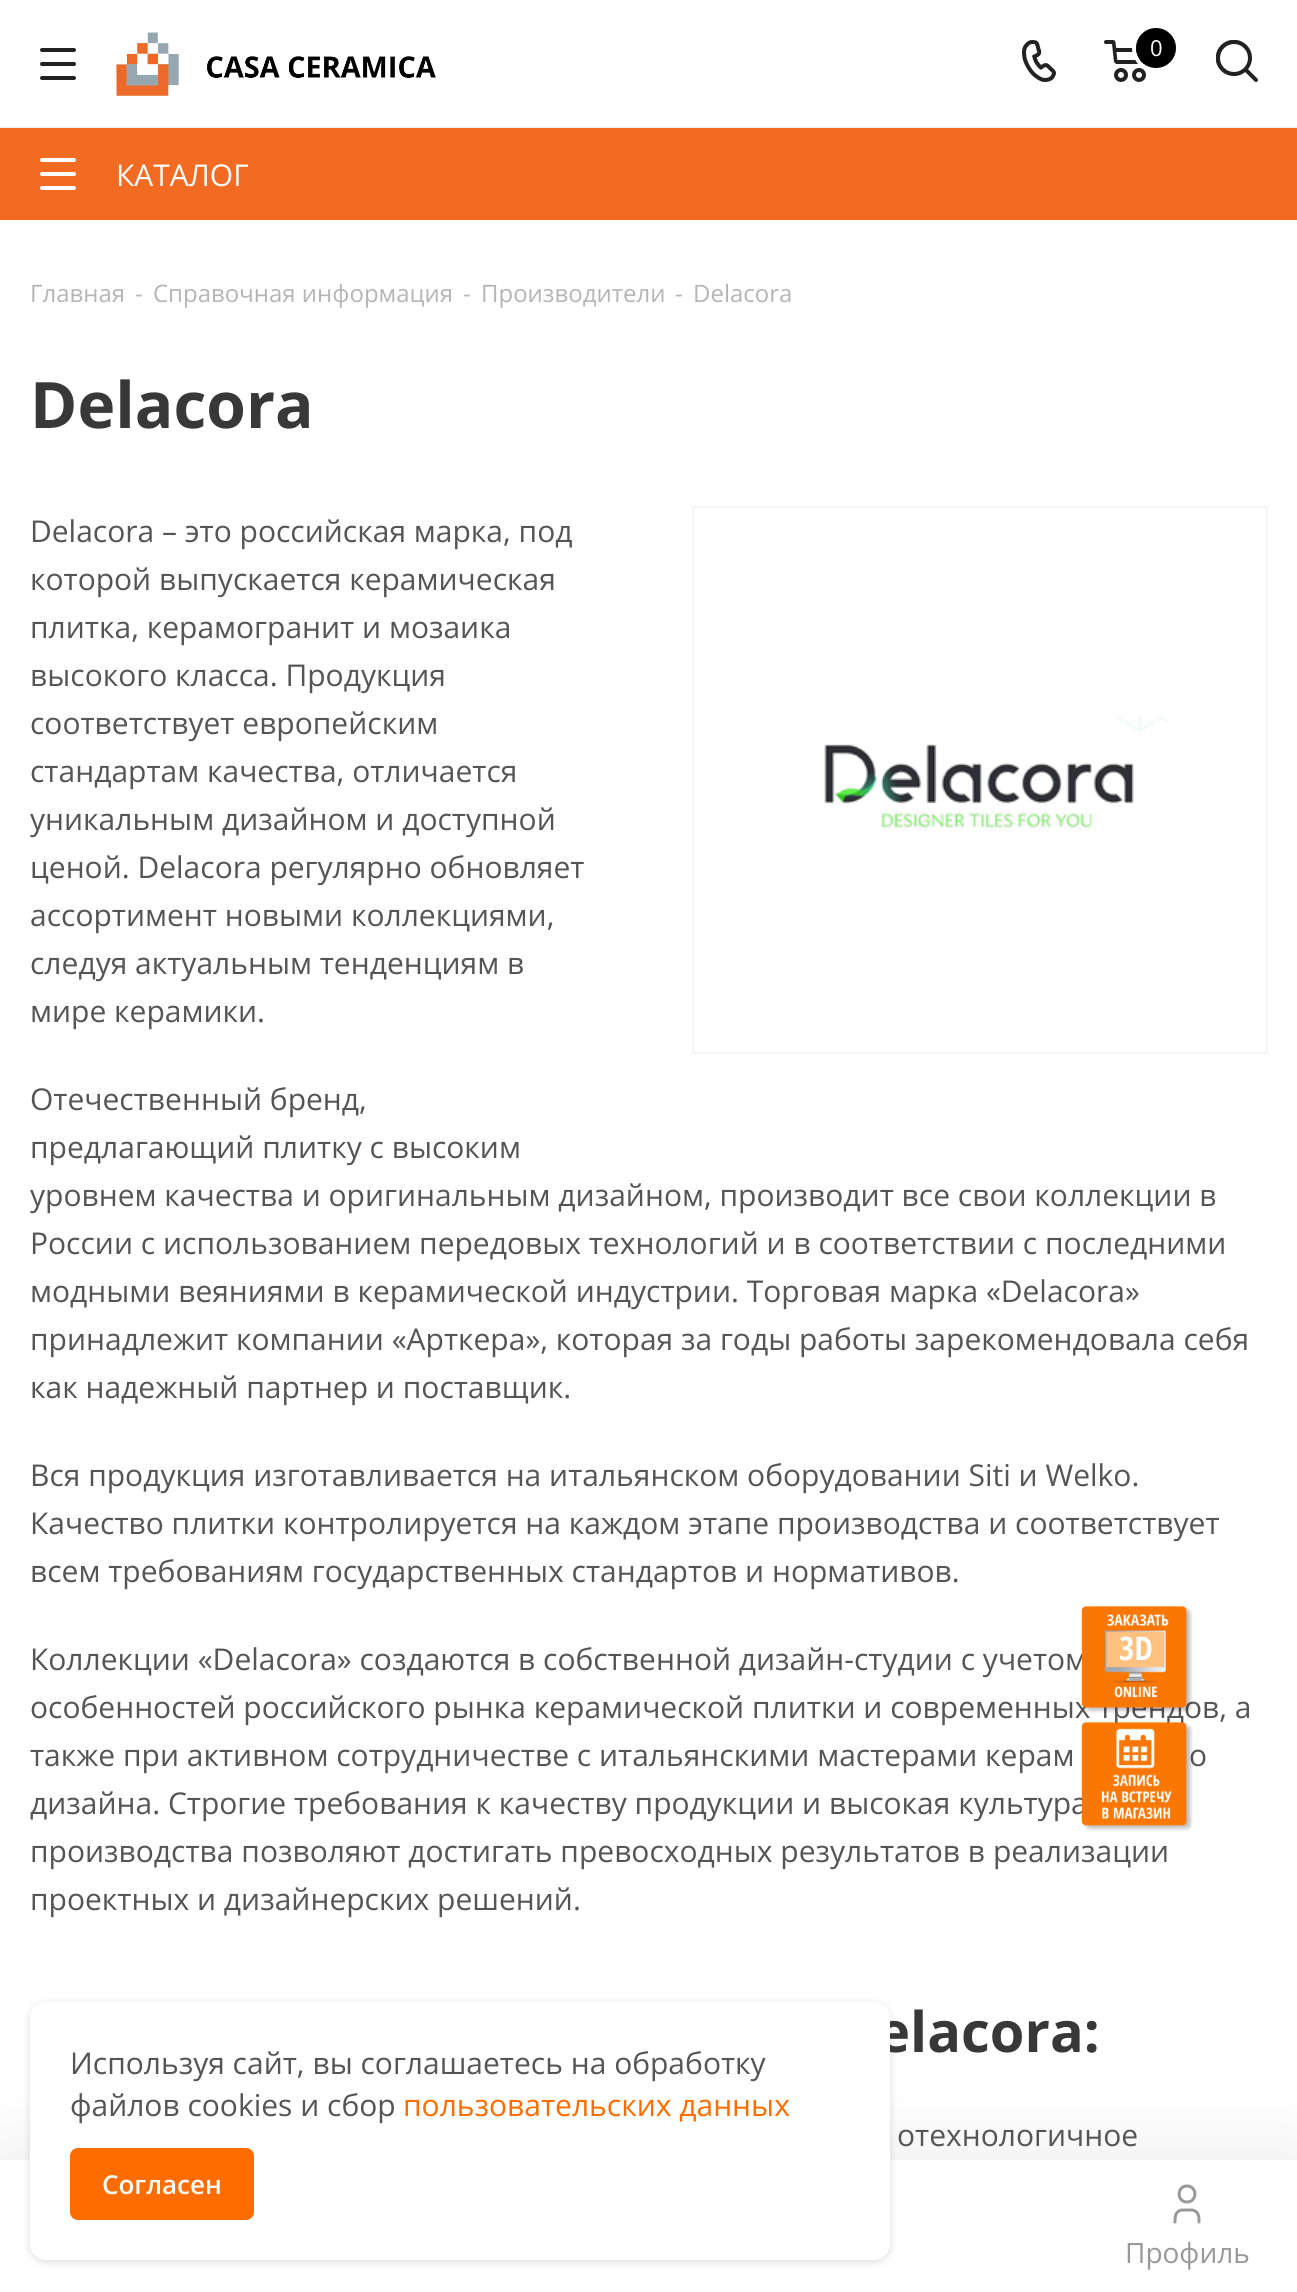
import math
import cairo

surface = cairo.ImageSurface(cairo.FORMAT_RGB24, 1297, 2292)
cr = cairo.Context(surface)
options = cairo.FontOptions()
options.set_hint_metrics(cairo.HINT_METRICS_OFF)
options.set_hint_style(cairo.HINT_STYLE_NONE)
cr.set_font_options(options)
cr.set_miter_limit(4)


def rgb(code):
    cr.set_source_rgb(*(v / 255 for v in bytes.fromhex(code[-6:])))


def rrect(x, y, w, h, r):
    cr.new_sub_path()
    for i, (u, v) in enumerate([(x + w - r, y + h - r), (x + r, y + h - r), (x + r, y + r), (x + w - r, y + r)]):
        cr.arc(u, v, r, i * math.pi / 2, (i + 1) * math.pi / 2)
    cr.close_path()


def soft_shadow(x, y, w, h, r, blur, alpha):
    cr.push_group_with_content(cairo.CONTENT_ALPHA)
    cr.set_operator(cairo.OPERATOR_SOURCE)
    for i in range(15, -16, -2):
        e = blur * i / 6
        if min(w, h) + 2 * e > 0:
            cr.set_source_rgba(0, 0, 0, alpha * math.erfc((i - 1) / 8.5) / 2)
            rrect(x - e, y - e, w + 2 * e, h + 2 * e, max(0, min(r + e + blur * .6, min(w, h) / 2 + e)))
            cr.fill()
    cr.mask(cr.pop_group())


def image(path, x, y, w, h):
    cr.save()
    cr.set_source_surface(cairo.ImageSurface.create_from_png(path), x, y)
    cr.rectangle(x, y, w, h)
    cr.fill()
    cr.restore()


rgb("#ffffff")
cr.paint()
rgb("#f5f5f5")
cr.rectangle(0, 126, 1297, 2)
cr.fill()
image("img/1.png", 40, 48, 36, 32)
image("img/2.png", 116, 32, 320, 64)
image("img/3.png", 1022, 40, 34, 42)
image("img/4.png", 1104, 40, 42, 42)
cr.arc(1156, 48, 22, 0, 2 * math.pi)
rgb("#ffffff")
cr.set_line_width(4)
cr.stroke()
rgb("#000000")
cr.arc(1156, 48, 20, 0, 2 * math.pi)
cr.fill()
image("img/5.png", 1216, 40, 42, 42)
rgb("#f16b23")
cr.rectangle(0, 128, 1297, 92)
cr.fill()
image("img/6.png", 40, 158, 36, 32)
cr.rectangle(693, 507, 574, 546)
rgb("#f5f5f5")
cr.set_line_width(2)
cr.stroke()
image("img/7.png", 824, 715, 345, 116)
rgb("#300e03")
soft_shadow(0, 2156, 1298, 136, 0, 41.5, 0.08)
rgb("#ffffff")
cr.rectangle(0, 2160, 1297, 132)
cr.fill()
rgb("#f5f5f5")
cr.rectangle(0, 2156, 1297, 4)
cr.fill()
rgb("#0c0c0d")
soft_shadow(30, 2004, 860, 258, 16, 4, 0.1)
soft_shadow(30, 2004, 860, 258, 16, 4, 0.05)
cr.new_path()
cr.move_to(1187, 2202)
cr.curve_to(1197.5, 2202, 1197.5, 2186, 1187, 2186)
cr.curve_to(1176.5, 2186, 1176.5, 2202, 1187, 2202)
cr.close_path()
cr.move_to(1175, 2222)
cr.curve_to(1175, 2217, 1175, 2211.5, 1181.5, 2210)
cr.line_to(1192.5, 2210)
cr.curve_to(1199, 2211.5, 1199, 2217, 1199, 2222)
rgb("#999999")
cr.set_line_width(3)
cr.set_line_cap(cairo.LINE_CAP_ROUND)
cr.set_line_join(cairo.LINE_JOIN_ROUND)
cr.stroke()
cr.select_font_face("Open Sans")
cr.set_font_size(22)
rgb("#ffffff")
cr.move_to(1150, 56)
cr.show_text("0")
cr.set_font_size(30)
cr.move_to(116, 186)
cr.show_text("КАТАЛОГ")
cr.set_font_size(24)
rgb("#b6b5b5")
for x, y, s in [
    (30, 302, "Главная"),
    (135, 302, "-"),
    (153, 302, "Справочная информация"),
    (463, 302, "-"),
    (481, 302, "Производители"),
    (675, 302, "-"),
    (693, 302, "Delacora"),
]:
    cr.move_to(x, y)
    cr.show_text(s)
cr.select_font_face("Open Sans", cairo.FONT_SLANT_NORMAL, cairo.FONT_WEIGHT_BOLD)
cr.set_font_size(64)
rgb("#383838")
cr.move_to(30, 428)
cr.show_text("Delacora")
cr.select_font_face("Open Sans")
cr.set_font_size(30)
rgb("#555555")
for x, y, s in [
    (30, 542, "Delacora – это российская марка, под"),
    (30, 590, "которой выпускается керамическая"),
    (30, 638, "плитка, керамогранит и мозаика"),
    (30, 686, "высокого класса. Продукция"),
    (30, 734, "соответствует европейским"),
    (30, 782, "стандартам качества, отличается"),
    (30, 830, "уникальным дизайном и доступной"),
    (30, 878, "ценой. Delacora регулярно обновляет"),
    (30, 926, "ассортимент новыми коллекциями,"),
    (30, 974, "следуя актуальным тенденциям в"),
    (30, 1022, "мире керамики."),
    (30, 1110, "Отечественный бренд,"),
    (30, 1158, "предлагающий плитку с высоким"),
    (30, 1206, "уровнем качества и оригинальным дизайном, производит все свои коллекции в"),
    (30, 1254, "России с использованием передовых технологий и в соответствии с последними"),
    (30, 1302, "модными веяниями в керамической индустрии. Торговая марка «Delacora»"),
    (30, 1350, "принадлежит компании «Арткера», которая за годы работы зарекомендовала себя"),
    (30, 1398, "как надежный партнер и поставщик."),
    (30, 1486, "Вся продукция изготавливается на итальянском оборудовании Siti и Welko."),
    (30, 1534, "Качество плитки контролируется на каждом этапе производства и соответствует"),
    (30, 1582, "всем требованиям государственных стандартов и нормативов."),
    (30, 1670, "Коллекции «Delacora» создаются в собственной дизайн-студии с учетом"),
    (30, 1718, "особенностей российского рынка керамической плитки и современных трендов, а"),
    (30, 1766, "также при активном сотрудничестве с итальянскими мастерами керам"),
    (1189, 1766, "о"),
    (30, 1814, "дизайна. Строгие требования к качеству продукции и высокая культура"),
    (30, 1862, "производства позволяют достигать превосходных результатов в реализации"),
    (30, 1910, "проектных и дизайнерских решений."),
]:
    cr.move_to(x, y)
    cr.show_text(s)
cr.select_font_face("Open Sans", cairo.FONT_SLANT_NORMAL, cairo.FONT_WEIGHT_BOLD)
cr.set_font_size(56)
rgb("#383838")
cr.move_to(877, 2052)
cr.show_text("elacora:")
cr.select_font_face("Open Sans")
cr.set_font_size(30)
rgb("#555555")
cr.move_to(897, 2146)
cr.show_text("отехнологичное")
image("img/8.png", 1081, 1606, 112, 107)
image("img/9.png", 1081, 1722, 112, 109)
rgb("#ffffff")
rrect(30, 2002, 860, 258, 16)
cr.fill()
rgb("#555555")
cr.move_to(70, 2074)
cr.show_text("Используя сайт, вы соглашаетесь на обработку")
cr.move_to(70, 2116)
cr.show_text("файлов cookies и сбор")
rgb("#ff6d00")
cr.move_to(403, 2116)
cr.show_text("пользовательских данных")
rrect(70, 2148, 184, 72, 8)
cr.fill()
cr.select_font_face("Open Sans SemiBold")
cr.set_font_size(26)
rgb("#ffffff")
cr.move_to(102, 2194)
cr.show_text("Согласен")
cr.select_font_face("Open Sans")
cr.set_font_size(28)
rgb("#999999")
cr.move_to(1125, 2263)
cr.show_text("Профиль")
surface.write_to_png("page.png")
